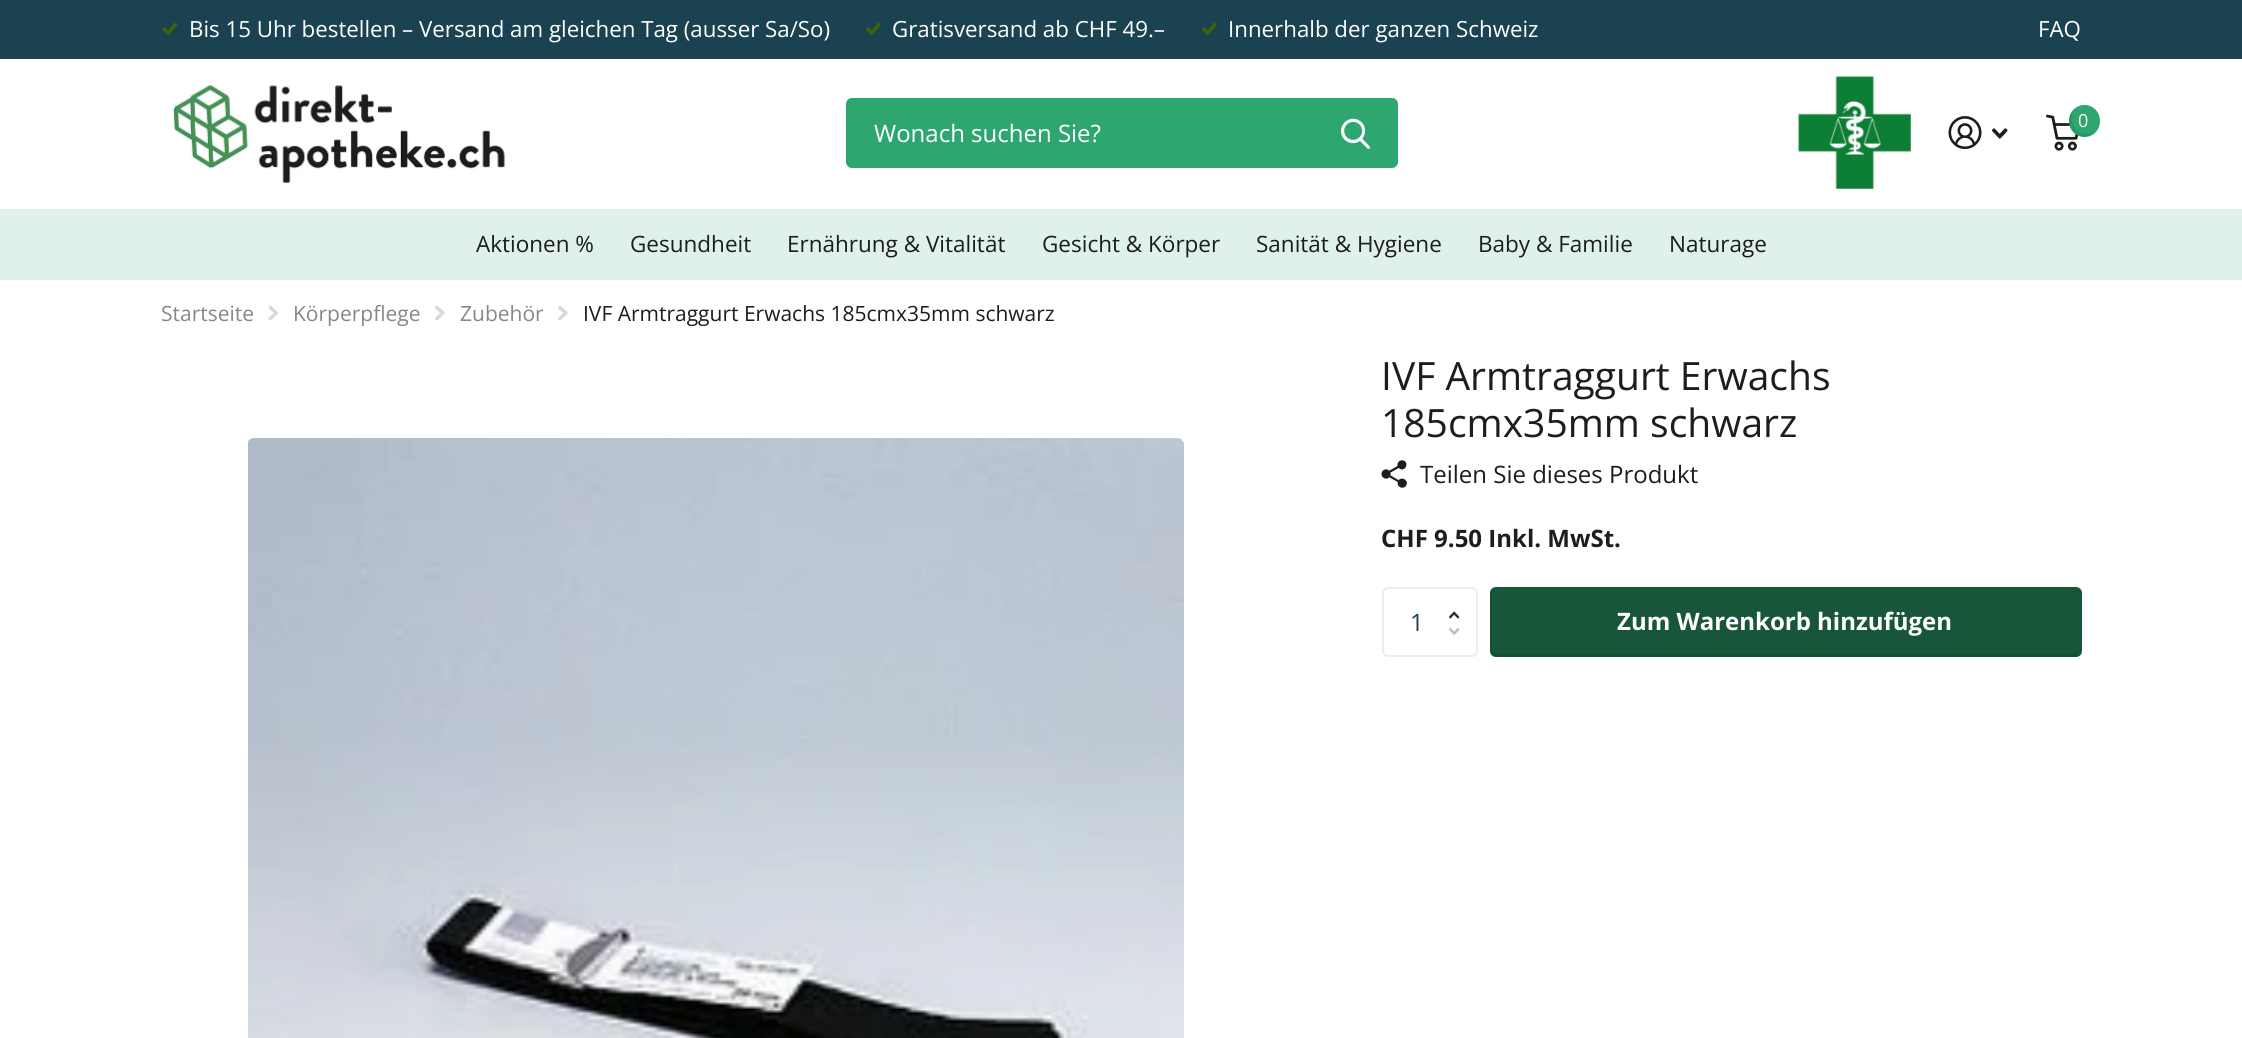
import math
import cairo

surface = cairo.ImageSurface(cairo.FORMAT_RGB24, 2242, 1038)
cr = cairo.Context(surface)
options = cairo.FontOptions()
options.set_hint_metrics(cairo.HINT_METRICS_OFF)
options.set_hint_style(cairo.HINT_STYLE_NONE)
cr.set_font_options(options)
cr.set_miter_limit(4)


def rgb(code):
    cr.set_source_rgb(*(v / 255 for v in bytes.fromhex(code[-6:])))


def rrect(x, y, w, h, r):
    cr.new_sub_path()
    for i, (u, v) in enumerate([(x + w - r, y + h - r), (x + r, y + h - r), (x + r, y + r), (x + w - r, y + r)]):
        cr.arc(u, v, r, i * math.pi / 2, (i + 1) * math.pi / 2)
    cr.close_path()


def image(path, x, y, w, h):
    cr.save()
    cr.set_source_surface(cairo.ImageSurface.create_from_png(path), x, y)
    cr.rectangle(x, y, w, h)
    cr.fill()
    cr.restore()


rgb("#ffffff")
cr.paint()
rgb("#1a4251")
cr.rectangle(0, 0, 2242, 59)
cr.fill()
image("img/1.png", 162, 22, 16, 14)
image("img/2.png", 866, 22, 15, 14)
image("img/2.png", 1202, 22, 15, 14)
image("img/3.png", 173, 85, 332, 99)
image("img/4.png", 1798, 76, 113, 113)
image("img/5.png", 1948, 116, 34, 34)
image("img/6.png", 1992, 128, 16, 11)
image("img/7.png", 2046, 114, 33, 37)
rgb("#2ea670")
rrect(2069, 105, 31, 32, 15.5)
cr.fill()
cr.set_source_rgba(0, 0, 0, 0.1)
cr.new_path()
cr.move_to(2097, 131)
cr.curve_to(2094.5, 133, 2091, 134, 2087, 134)
cr.curve_to(2073, 134, 2068.5, 118, 2074.5, 108.5)
cr.curve_to(2067.5, 114.5, 2067, 126, 2073.5, 132.5)
cr.curve_to(2080, 139, 2091.5, 138, 2097, 131)
cr.close_path()
cr.fill()
rgb("#2ea670")
rrect(846, 98, 552, 70, 6)
cr.fill()
image("img/8.png", 1341, 118, 29, 31)
rgb("#dff1e9")
cr.rectangle(0, 209, 2242, 71)
cr.fill()
image("img/9.png", 268, 305, 11, 16)
image("img/10.png", 435, 305, 10, 16)
image("img/10.png", 558, 305, 10, 16)
image("img/11.png", 248, 438, 936, 600)
image("img/12.png", 1381, 460, 26, 28)
rrect(1383, 588, 94, 68, 5)
rgb("#ededed")
cr.stroke()
image("img/13.png", 1449, 611, 11, 8)
image("img/14.png", 1449, 628, 11, 7)
rgb("#18563a")
rrect(1490, 587, 592, 70, 6)
cr.fill()
cr.set_source_rgba(0, 0, 0, 0.1)
cr.new_path()
cr.move_to(1492, 588)
cr.curve_to(1491, 589, 1490, 591, 1490, 593)
cr.line_to(1490, 651)
cr.curve_to(1490, 654, 1493, 657, 1496, 657)
cr.line_to(2076, 657)
cr.curve_to(2078, 657, 2081, 655, 2082, 653)
cr.line_to(2079, 654)
cr.line_to(1498, 654)
cr.curve_to(1495, 654, 1492, 651, 1492, 648)
cr.close_path()
cr.fill()
cr.select_font_face("Open Sans")
cr.set_font_size(22.3)
rgb("#ffffff")
for x, y, s in [
    (189, 37, "Bis 15 Uhr bestellen – Versand am gleichen Tag (ausser Sa/So)"),
    (892, 37, "Gratisversand ab CHF 49.–"),
    (1228, 37, "Innerhalb der ganzen Schweiz"),
    (2038, 37, "FAQ"),
]:
    cr.move_to(x, y)
    cr.show_text(s)
cr.set_font_size(18)
cr.move_to(2078, 127)
cr.show_text("0")
cr.set_font_size(24)
cr.move_to(874, 142)
cr.show_text("Wonach suchen Sie?")
cr.set_font_size(22.5)
rgb("#1d1d1b")
for x, y, s in [
    (476, 252, "Aktionen %"),
    (630, 252, "Gesundheit"),
    (787, 252, "Ernährung & Vitalität"),
    (1042, 252, "Gesicht & Körper"),
    (1256, 252, "Sanität & Hygiene"),
    (1478, 252, "Baby & Familie"),
    (1669, 252, "Naturage"),
]:
    cr.move_to(x, y)
    cr.show_text(s)
cr.set_font_size(21)
rgb("#878786")
for x, y, s in [
    (161, 321, "Startseite"),
    (293, 321, "Körperpflege"),
    (460, 321, "Zubehör"),
]:
    cr.move_to(x, y)
    cr.show_text(s)
rgb("#1d1d1b")
cr.move_to(583, 321)
cr.show_text("IVF Armtraggurt Erwachs 185cmx35mm schwarz")
cr.set_font_size(39)
cr.move_to(1381, 390)
cr.show_text("IVF Armtraggurt Erwachs")
cr.move_to(1381, 437)
cr.show_text("185cmx35mm schwarz")
cr.set_font_size(24)
cr.move_to(1420, 483)
cr.show_text("Teilen Sie dieses Produkt")
cr.select_font_face("Open Sans", cairo.FONT_SLANT_NORMAL, cairo.FONT_WEIGHT_BOLD)
cr.move_to(1381, 547)
cr.show_text("CHF 9.50 Inkl. MwSt.")
cr.select_font_face("Open Sans")
rgb("#1a4251")
cr.move_to(1410, 631)
cr.show_text("1")
cr.select_font_face("Open Sans", cairo.FONT_SLANT_NORMAL, cairo.FONT_WEIGHT_BOLD)
rgb("#ffffff")
cr.move_to(1617, 630)
cr.show_text("Zum Warenkorb hinzufügen")
surface.write_to_png("page.png")
